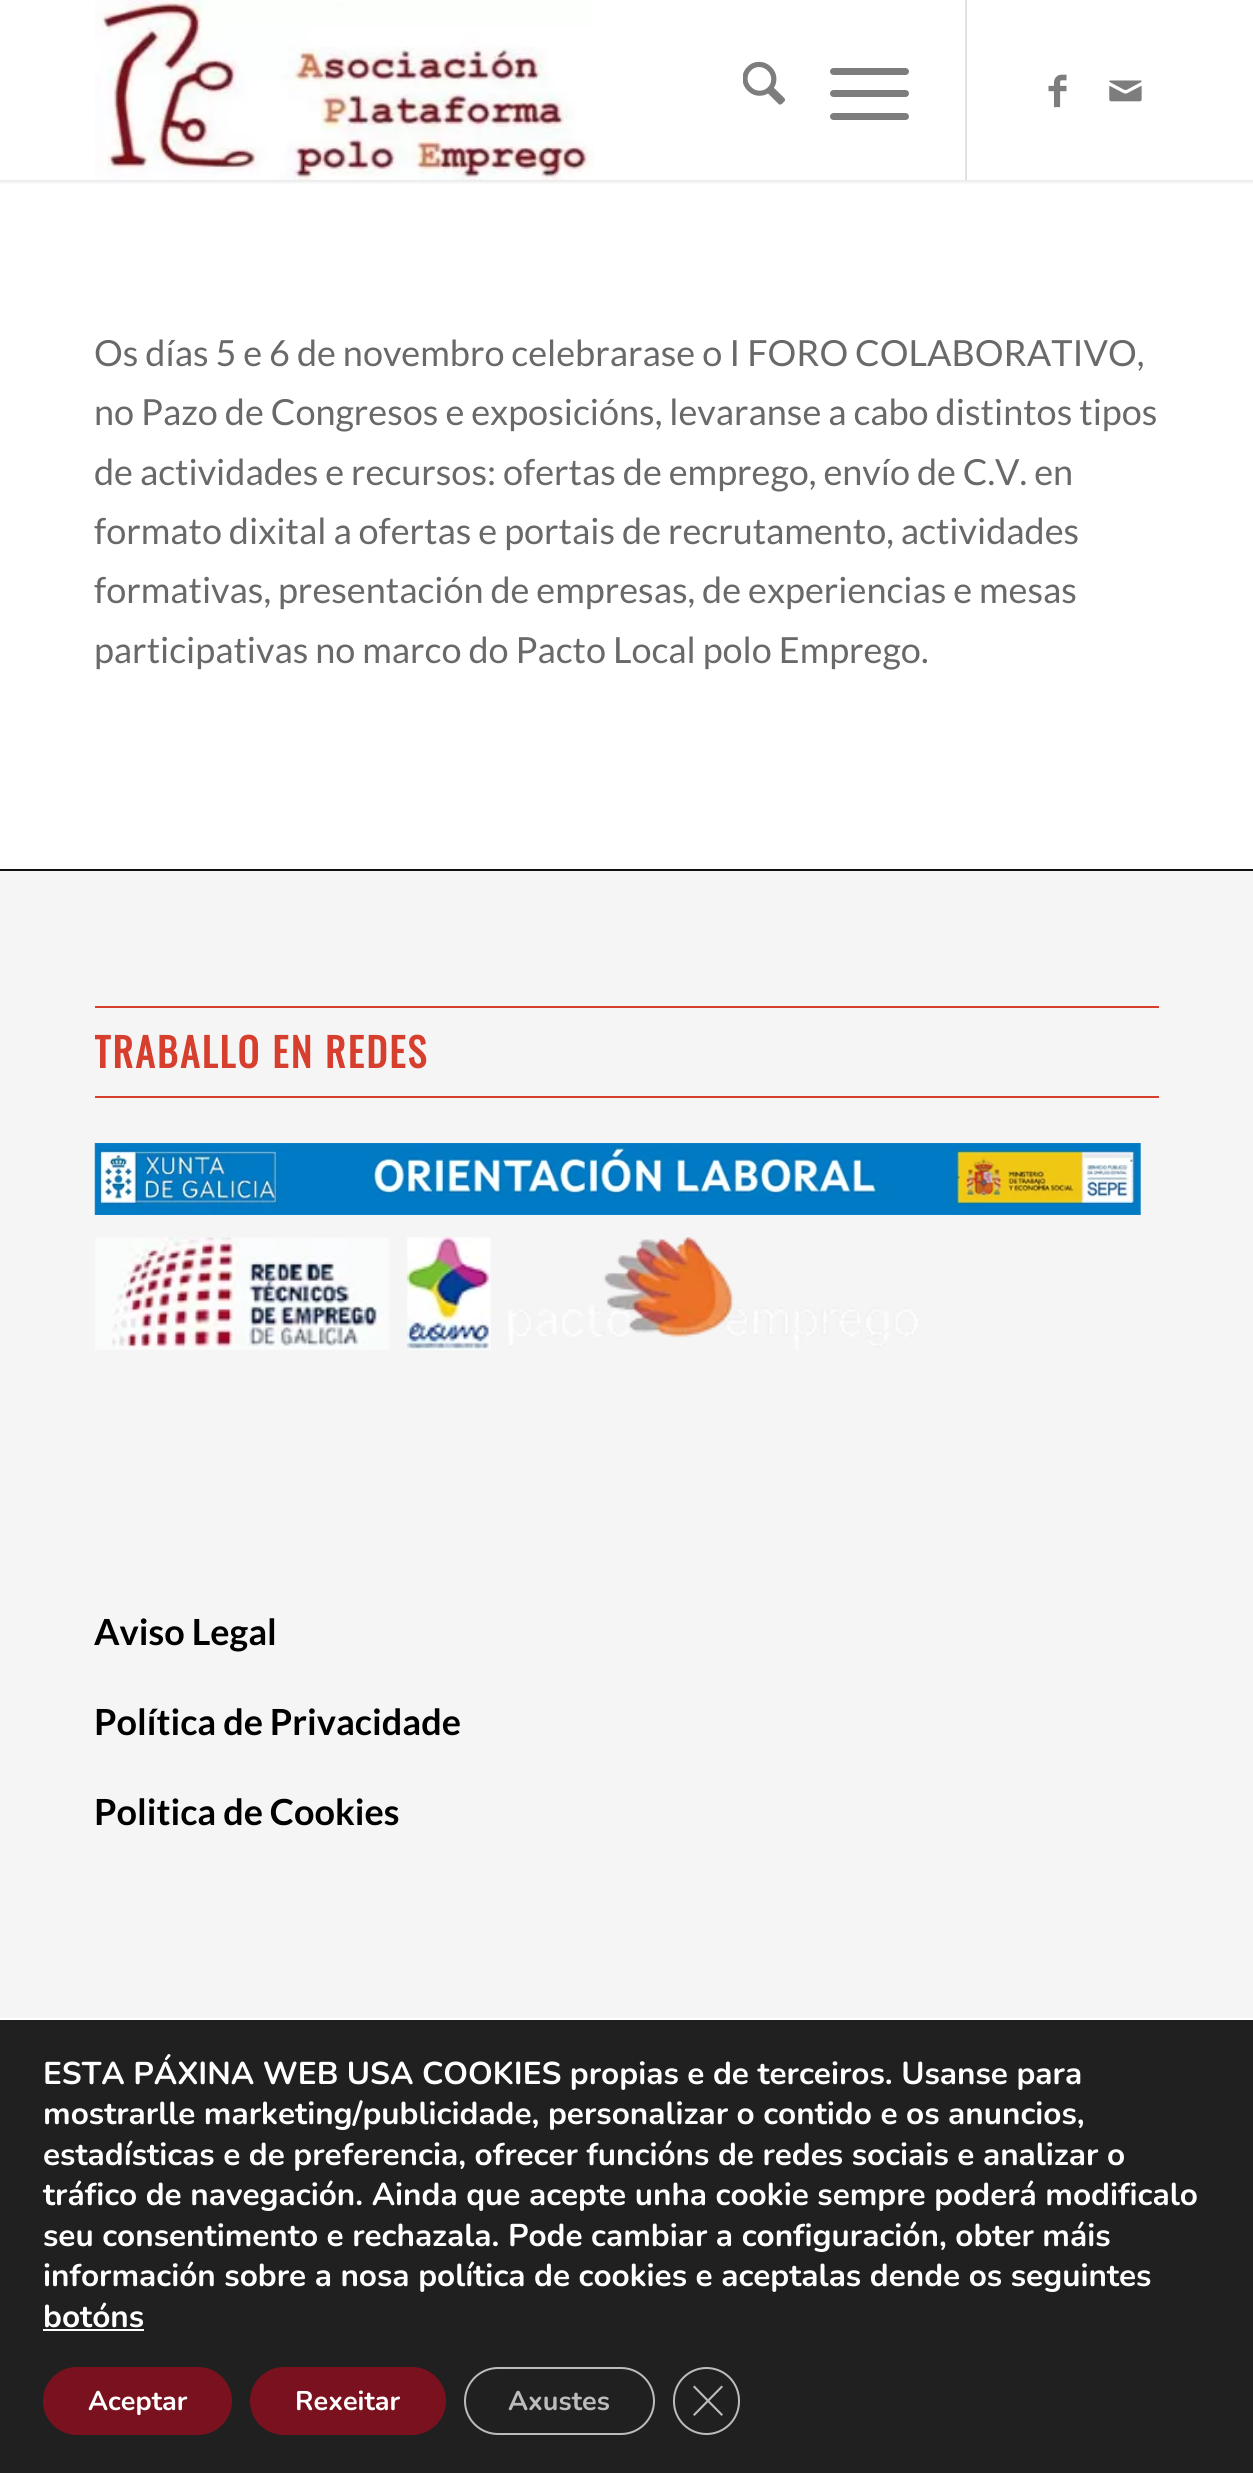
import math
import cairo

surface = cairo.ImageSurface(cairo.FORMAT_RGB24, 1253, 2473)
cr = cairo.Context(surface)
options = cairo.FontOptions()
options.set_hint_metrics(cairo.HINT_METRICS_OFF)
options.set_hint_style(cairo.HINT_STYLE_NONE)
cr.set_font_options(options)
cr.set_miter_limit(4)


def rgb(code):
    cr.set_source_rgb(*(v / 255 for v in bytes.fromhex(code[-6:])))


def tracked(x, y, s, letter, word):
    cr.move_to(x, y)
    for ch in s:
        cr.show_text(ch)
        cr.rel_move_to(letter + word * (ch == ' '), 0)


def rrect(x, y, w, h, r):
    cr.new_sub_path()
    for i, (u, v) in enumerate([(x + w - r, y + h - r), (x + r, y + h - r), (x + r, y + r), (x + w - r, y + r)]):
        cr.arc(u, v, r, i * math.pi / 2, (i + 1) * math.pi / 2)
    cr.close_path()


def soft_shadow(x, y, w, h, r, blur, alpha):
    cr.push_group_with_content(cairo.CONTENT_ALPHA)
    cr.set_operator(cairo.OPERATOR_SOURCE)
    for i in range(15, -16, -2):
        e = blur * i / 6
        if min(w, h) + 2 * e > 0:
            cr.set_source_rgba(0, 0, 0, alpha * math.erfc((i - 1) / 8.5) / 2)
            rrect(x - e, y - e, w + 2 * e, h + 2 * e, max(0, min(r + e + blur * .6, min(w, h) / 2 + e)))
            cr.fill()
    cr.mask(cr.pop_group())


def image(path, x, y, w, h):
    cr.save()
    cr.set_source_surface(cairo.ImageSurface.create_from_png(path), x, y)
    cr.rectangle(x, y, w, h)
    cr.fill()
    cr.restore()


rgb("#ffffff")
cr.paint()
cr.save()
cr.rectangle(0, 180, 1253, 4)
cr.clip()
rgb("#000000")
soft_shadow(-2, -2, 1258, 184, 0, 2, 0.1)
cr.restore()
image("img/1.png", 95, 0, 499, 180)
rgb("#e1e1e1")
cr.rectangle(965, 0, 2, 180)
cr.fill()
image("img/2.png", 743, 61, 42, 44)
rgb("#7d7d7d")
rrect(830, 90, 79, 7, 3.5)
cr.fill()
rrect(830, 68, 79, 7, 3.5)
cr.fill()
rrect(830, 113, 79, 7, 3.5)
cr.fill()
image("img/3.png", 1048, 74, 19, 34)
image("img/4.png", 1109, 80, 33, 22)
for x, y, w, h, color in [
    (0, 871, 1253, 1147, "#f5f5f5"),
    (0, 869, 1253, 2, "#111111"),
    (95, 1006, 1064, 2, "#d63e2d"),
    (95, 1096, 1064, 2, "#d63e2d"),
]:
    rgb(color)
    cr.rectangle(x, y, w, h)
    cr.fill()
image("img/5.png", 94, 1143, 1047, 72)
image("img/6.png", 95, 1237, 294, 113)
image("img/7.png", 407, 1237, 84, 113)
image("img/8.png", 508, 1237, 410, 113)
rgb("#202020")
cr.rectangle(0, 2020, 1253, 453)
cr.fill()
rgb("#ffffff")
cr.rectangle(43, 2329, 101, 2)
cr.fill()
rgb("#7a111e")
rrect(43, 2367, 189, 68, 34)
cr.fill()
rrect(250, 2367, 196, 68, 34)
cr.fill()
rrect(465, 2368, 189, 66, 33)
rgb("#bcbcbc")
cr.stroke()
rrect(674, 2368, 65, 66, 32.5)
cr.stroke()
cr.new_path()
cr.move_to(721.5, 2385.5)
cr.line_to(723, 2387)
cr.line_to(694.5, 2416)
cr.line_to(693, 2414.5)
cr.close_path()
cr.fill()
cr.new_path()
cr.move_to(693, 2387)
cr.line_to(694.5, 2385.5)
cr.line_to(723, 2414.5)
cr.line_to(721.5, 2416)
cr.close_path()
cr.fill()
cr.select_font_face("Lato")
cr.set_font_size(36)
rgb("#696969")
for x, y, s in [
    (94, 366, "Os días 5 e 6 de novembro celebrarase o I FORO COLABORATIVO,"),
    (94, 425, "no Pazo de Congresos e exposicións, levaranse a cabo distintos tipos"),
    (94, 485, "de actividades e recursos: ofertas de emprego, envío de C.V. en"),
    (94, 544, "formato dixital a ofertas e portais de recrutamento, actividades"),
    (94, 603, "formativas, presentación de empresas, de experiencias e mesas"),
    (94, 663, "participativas no marco do Pacto Local polo Emprego."),
]:
    cr.move_to(x, y)
    cr.show_text(s)
cr.save()
cr.rectangle(95, 972, 1064, 533)
cr.clip()
cr.select_font_face("Oswald", cairo.FONT_SLANT_NORMAL, cairo.FONT_WEIGHT_BOLD)
cr.set_font_size(39.5)
rgb("#d63e2d")
tracked(94, 1068, "TRABALLO EN REDES", 2.25, 0)
cr.restore()
cr.select_font_face("Lato", cairo.FONT_SLANT_NORMAL, cairo.FONT_WEIGHT_BOLD)
rgb("#000000")
for x, y, s in [
    (94, 1645, "Aviso Legal"),
    (94, 1735, "Política de Privacidade"),
    (94, 1825, "Politica de Cookies"),
]:
    cr.move_to(x, y)
    cr.show_text(s)
cr.select_font_face("Nunito", cairo.FONT_SLANT_NORMAL, cairo.FONT_WEIGHT_BOLD)
cr.set_font_size(31.5)
rgb("#ffffff")
for x, y, s in [
    (43, 2084, "ESTA PÁXINA WEB USA COOKIES propias e de terceiros. Usanse para"),
    (43, 2124, "mostrarlle marketing/publicidade, personalizar o contido e os anuncios,"),
    (43, 2165, "estadísticas e de preferencia, ofrecer funcións de redes sociais e analizar o"),
    (43, 2205, "tráfico de navegación. Ainda que acepte unha cookie sempre poderá modificalo"),
    (43, 2246, "seu consentimento e rechazala. Pode cambiar a configuración, obter máis"),
    (43, 2286, "información sobre a nosa política de cookies e aceptalas dende os seguintes"),
    (43, 2327, "botóns"),
]:
    cr.move_to(x, y)
    cr.show_text(s)
cr.set_font_size(27)
cr.move_to(88, 2410)
cr.show_text("Aceptar")
cr.move_to(295, 2410)
cr.show_text("Rexeitar")
rgb("#bcbcbc")
cr.move_to(508, 2410)
cr.show_text("Axustes")
surface.write_to_png("page.png")
